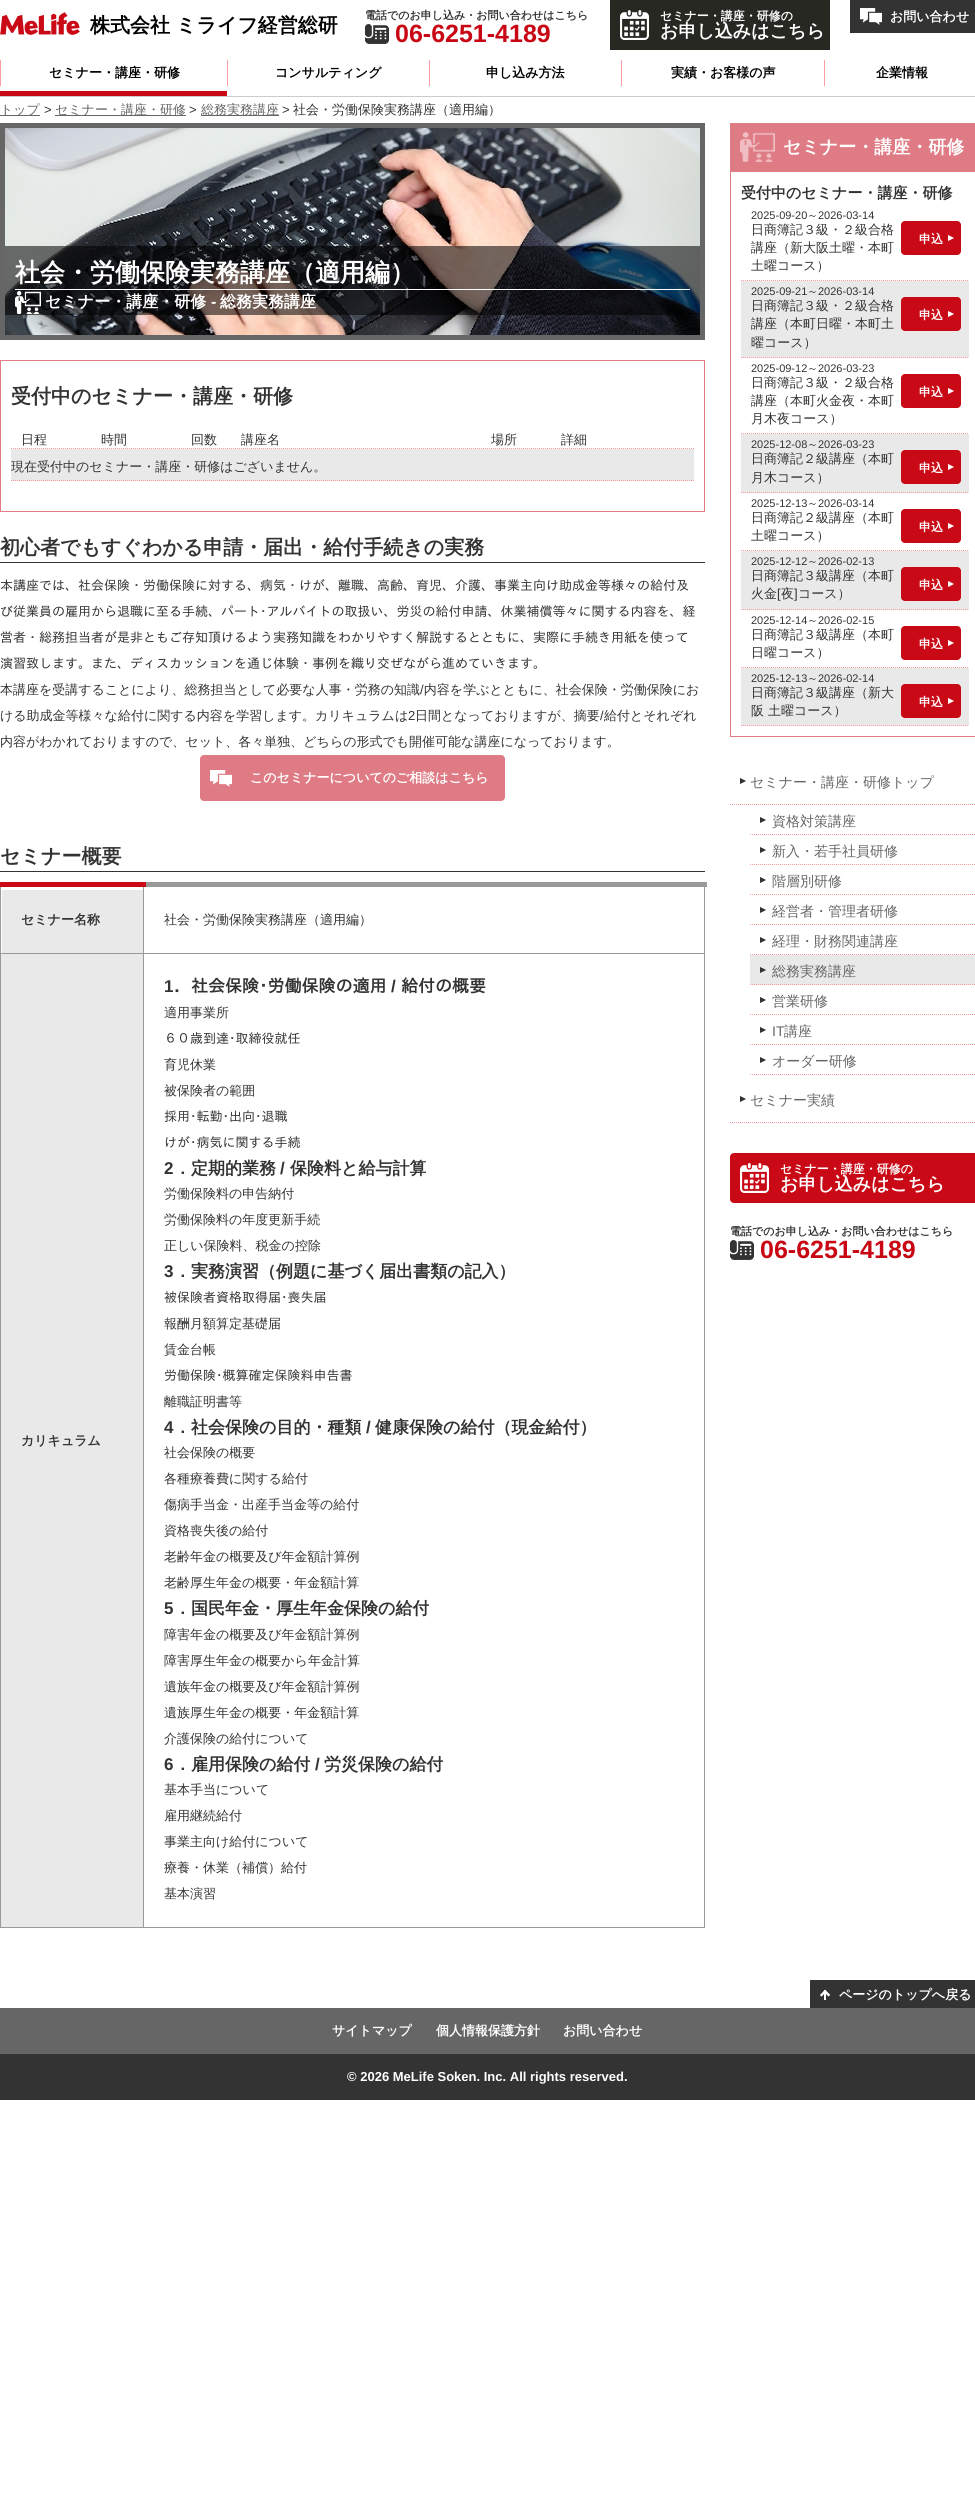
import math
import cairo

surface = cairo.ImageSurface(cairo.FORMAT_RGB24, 975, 2495)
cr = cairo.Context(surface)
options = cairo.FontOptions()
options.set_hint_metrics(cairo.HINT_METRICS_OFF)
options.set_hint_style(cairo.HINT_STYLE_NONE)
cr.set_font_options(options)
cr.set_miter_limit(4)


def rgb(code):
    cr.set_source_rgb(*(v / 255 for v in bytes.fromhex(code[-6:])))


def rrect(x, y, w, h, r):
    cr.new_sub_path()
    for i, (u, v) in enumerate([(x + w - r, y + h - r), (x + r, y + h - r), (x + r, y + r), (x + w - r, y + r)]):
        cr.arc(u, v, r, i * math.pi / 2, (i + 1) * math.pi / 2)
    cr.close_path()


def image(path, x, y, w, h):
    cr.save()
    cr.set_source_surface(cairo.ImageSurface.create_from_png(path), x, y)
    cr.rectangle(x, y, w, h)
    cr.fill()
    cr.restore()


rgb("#ffffff")
cr.paint()
image("img/1.png", 0, 12, 80, 23)
image("img/2.png", 365, 24, 24, 20)
rgb("#272822")
cr.rectangle(610, 0, 220, 50)
cr.fill()
image("img/3.png", 620, 10, 29, 30)
rgb("#333333")
cr.rectangle(850, 0, 125, 33)
cr.fill()
image("img/4.png", 860, 8, 22, 17)
for x, y, w, h, color in [
    (0, 91, 227, 5, "#c90915"),
    (0, 60, 1, 26, "#fb9da2"),
    (227, 60, 1, 26, "#fb9da2"),
    (429, 60, 1, 26, "#fb9da2"),
    (621, 60, 1, 26, "#fb9da2"),
    (824, 60, 1, 26, "#fb9da2"),
    (0, 96, 975, 1, "#cccccc"),
    (0, 115, 40, 1, "#666666"),
    (55, 115, 131, 1, "#666666"),
    (201, 115, 78, 1, "#666666"),
]:
    rgb(color)
    cr.rectangle(x, y, w, h)
    cr.fill()
image("img/5.png", 5, 128, 695, 207)
cr.rectangle(2.5, 125.5, 700, 212)
cr.set_line_width(5)
cr.stroke()
cr.set_source_rgba(0, 0, 0, 0.55)
cr.rectangle(5, 246, 695, 69)
cr.fill()
image("img/6.png", 15, 291, 26, 23)
rgb("#ffffff")
cr.rectangle(15, 289, 675, 1)
cr.fill()
cr.rectangle(0.5, 360.5, 704, 151)
rgb("#df7c84")
cr.set_line_width(1)
cr.stroke()
cr.new_path()
cr.move_to(11, 448.5)
cr.line_to(694, 448.5)
rgb("#fb9da2")
cr.set_dash([1, 1])
cr.stroke()
rgb("#e9e9e9")
cr.rectangle(11, 449, 683, 32)
cr.fill()
cr.new_path()
cr.move_to(11, 480.5)
cr.line_to(694, 480.5)
rgb("#fb9da2")
cr.stroke()
rgb("#333333")
cr.rectangle(0, 562, 705, 1)
cr.fill()
rgb("#df7b84")
rrect(200, 755, 305, 46, 4)
cr.fill()
image("img/7.png", 210, 770, 22, 17)
for x, y, w, h, color in [
    (0, 871, 705, 1, "#333333"),
    (2, 890, 141, 63, "#e9e9e9"),
    (143, 953, 562, 1, "#999999"),
    (704, 884, 1, 1044, "#999999"),
    (143, 1927, 562, 1, "#999999"),
    (143, 953, 1, 975, "#999999"),
    (0, 953, 144, 1, "#999999"),
    (143, 884, 1, 70, "#999999"),
    (141, 882, 566, 5, "#999999"),
    (0, 1927, 144, 1, "#999999"),
    (0, 884, 1, 1044, "#999999"),
    (0, 882, 146, 5, "#c90915"),
    (1, 954, 142, 973, "#e9e9e9"),
    (730, 123, 245, 48, "#df7b84"),
]:
    rgb(color)
    cr.rectangle(x, y, w, h)
    cr.fill()
image("img/8.png", 740, 132, 35, 30)
cr.rectangle(730.5, 171.5, 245, 565)
rgb("#df7c84")
cr.set_dash([])
cr.stroke()
cr.new_path()
cr.move_to(741, 280.5)
cr.line_to(969, 280.5)
rgb("#fb9da2")
cr.set_dash([1, 1])
cr.stroke()
rgb("#c90915")
rrect(901, 221, 60, 34, 4)
cr.fill()
image("img/9.png", 948, 235, 6, 6)
rgb("#e9e9e9")
cr.rectangle(741, 281, 228, 77)
cr.fill()
cr.new_path()
cr.move_to(741, 357.5)
cr.line_to(969, 357.5)
rgb("#fb9da2")
cr.stroke()
rgb("#c90915")
rrect(901, 297, 60, 34, 4)
cr.fill()
image("img/9.png", 948, 311, 6, 6)
cr.new_path()
cr.move_to(741, 433.5)
cr.line_to(969, 433.5)
rgb("#fb9da2")
cr.stroke()
rgb("#c90915")
rrect(901, 374, 60, 34, 4)
cr.fill()
image("img/9.png", 948, 388, 6, 6)
rgb("#e9e9e9")
cr.rectangle(741, 434, 228, 59)
cr.fill()
cr.new_path()
cr.move_to(741, 492.5)
cr.line_to(969, 492.5)
rgb("#fb9da2")
cr.stroke()
rgb("#c90915")
rrect(901, 450, 60, 34, 4)
cr.fill()
image("img/9.png", 948, 464, 6, 6)
cr.new_path()
cr.move_to(741, 550.5)
cr.line_to(969, 550.5)
rgb("#fb9da2")
cr.stroke()
rgb("#c90915")
rrect(901, 509, 60, 34, 4)
cr.fill()
image("img/9.png", 948, 523, 6, 6)
rgb("#e9e9e9")
cr.rectangle(741, 551, 228, 59)
cr.fill()
cr.new_path()
cr.move_to(741, 609.5)
cr.line_to(969, 609.5)
rgb("#fb9da2")
cr.stroke()
rgb("#c90915")
rrect(901, 567, 60, 34, 4)
cr.fill()
image("img/9.png", 948, 581, 6, 6)
cr.new_path()
cr.move_to(741, 667.5)
cr.line_to(969, 667.5)
rgb("#fb9da2")
cr.stroke()
rgb("#c90915")
rrect(901, 626, 60, 34, 4)
cr.fill()
image("img/9.png", 948, 640, 6, 6)
rgb("#e9e9e9")
cr.rectangle(741, 668, 228, 58)
cr.fill()
cr.new_path()
cr.move_to(741, 725.5)
cr.line_to(969, 725.5)
rgb("#fb9da2")
cr.stroke()
rgb("#c90915")
rrect(901, 684, 60, 34, 4)
cr.fill()
image("img/9.png", 948, 698, 6, 6)
image("img/10.png", 740, 778, 6, 6)
cr.new_path()
cr.move_to(730, 804.5)
cr.line_to(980, 804.5)
rgb("#fb9da2")
cr.stroke()
image("img/10.png", 760, 817, 6, 6)
cr.new_path()
cr.move_to(750, 834.5)
cr.line_to(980, 834.5)
cr.stroke()
image("img/10.png", 760, 847, 6, 6)
cr.new_path()
cr.move_to(750, 864.5)
cr.line_to(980, 864.5)
cr.stroke()
image("img/10.png", 760, 877, 6, 6)
cr.new_path()
cr.move_to(750, 894.5)
cr.line_to(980, 894.5)
cr.stroke()
image("img/10.png", 760, 907, 6, 6)
cr.new_path()
cr.move_to(750, 924.5)
cr.line_to(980, 924.5)
cr.stroke()
image("img/10.png", 760, 937, 6, 6)
cr.new_path()
cr.move_to(750, 954.5)
cr.line_to(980, 954.5)
cr.stroke()
rgb("#e9e9e9")
cr.rectangle(750, 955, 225, 30)
cr.fill()
image("img/11.png", 760, 967, 6, 6)
cr.new_path()
cr.move_to(750, 984.5)
cr.line_to(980, 984.5)
rgb("#fb9da2")
cr.stroke()
image("img/10.png", 760, 997, 6, 6)
cr.new_path()
cr.move_to(750, 1014.5)
cr.line_to(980, 1014.5)
cr.stroke()
image("img/10.png", 760, 1027, 6, 6)
cr.new_path()
cr.move_to(750, 1044.5)
cr.line_to(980, 1044.5)
cr.stroke()
image("img/10.png", 760, 1057, 6, 6)
cr.new_path()
cr.move_to(750, 1074.5)
cr.line_to(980, 1074.5)
cr.stroke()
image("img/10.png", 740, 1096, 6, 6)
cr.new_path()
cr.move_to(730, 1122.5)
cr.line_to(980, 1122.5)
cr.stroke()
rgb("#c90915")
rrect(730, 1153, 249, 50, 4)
cr.fill()
image("img/12.png", 740, 1163, 29, 30)
image("img/2.png", 730, 1240, 24, 20)
rgb("#333333")
cr.rectangle(810, 1980, 165, 28)
cr.fill()
image("img/13.png", 820, 1989, 11, 11)
rgb("#666666")
cr.rectangle(0, 2008, 975, 46)
cr.fill()
rgb("#333333")
cr.rectangle(0, 2054, 975, 46)
cr.fill()
cr.select_font_face("WenQuanYi Zen Hei", cairo.FONT_SLANT_NORMAL, cairo.FONT_WEIGHT_BOLD)
cr.set_font_size(20)
rgb("#000000")
cr.move_to(90, 32)
cr.show_text("株式会社 ミライフ経営総研")
cr.set_font_size(11)
rgb("#333333")
cr.move_to(365, 19)
cr.show_text("電話でのお申し込み・お問い合わせはこちら")
cr.select_font_face("Liberation Sans", cairo.FONT_SLANT_NORMAL, cairo.FONT_WEIGHT_BOLD)
cr.set_font_size(25)
rgb("#c90613")
cr.move_to(395, 42)
cr.show_text("06-6251-4189")
cr.select_font_face("WenQuanYi Zen Hei", cairo.FONT_SLANT_NORMAL, cairo.FONT_WEIGHT_BOLD)
cr.set_font_size(12)
rgb("#ffffff")
cr.move_to(660, 20)
cr.show_text("セミナー・講座・研修の")
cr.set_font_size(18)
cr.move_to(660, 37)
cr.show_text("お申し込みはこちら")
cr.set_font_size(13)
cr.move_to(890, 21)
cr.show_text("お問い合わせ")
rgb("#000000")
for x, y, s in [
    (49, 77, "セミナー・講座・研修"),
    (275, 77, "コンサルティング"),
    (486, 77, "申し込み方法"),
    (671, 77, "実績・お客様の声"),
    (876, 77, "企業情報"),
]:
    cr.move_to(x, y)
    cr.show_text(s)
cr.select_font_face("WenQuanYi Zen Hei Medium")
rgb("#666666")
cr.move_to(0, 114)
cr.show_text("トップ")
cr.select_font_face("Liberation Sans")
rgb("#333333")
cr.move_to(44, 114)
cr.show_text(">")
cr.select_font_face("WenQuanYi Zen Hei Medium")
rgb("#666666")
cr.move_to(55, 114)
cr.show_text("セミナー・講座・研修")
cr.select_font_face("Liberation Sans")
rgb("#333333")
cr.move_to(189, 114)
cr.show_text(">")
cr.select_font_face("WenQuanYi Zen Hei Medium")
rgb("#666666")
cr.move_to(201, 114)
cr.show_text("総務実務講座")
cr.select_font_face("Liberation Sans")
rgb("#333333")
cr.move_to(282, 114)
cr.show_text(">")
cr.select_font_face("WenQuanYi Zen Hei Medium")
cr.move_to(293, 114)
cr.show_text("社会・労働保険実務講座（適用編）")
cr.select_font_face("WenQuanYi Zen Hei", cairo.FONT_SLANT_NORMAL, cairo.FONT_WEIGHT_BOLD)
cr.set_font_size(25)
rgb("#ffffff")
cr.move_to(15, 281)
cr.show_text("社会・労働保険実務講座（適用編）")
cr.set_font_size(16)
cr.move_to(45, 307)
cr.show_text("セミナー・講座・研修")
cr.select_font_face("Liberation Sans", cairo.FONT_SLANT_NORMAL, cairo.FONT_WEIGHT_BOLD)
cr.move_to(211, 307)
cr.show_text("-")
cr.select_font_face("WenQuanYi Zen Hei", cairo.FONT_SLANT_NORMAL, cairo.FONT_WEIGHT_BOLD)
cr.move_to(220, 307)
cr.show_text("総務実務講座")
cr.set_font_size(20)
rgb("#333333")
cr.move_to(11, 403)
cr.show_text("受付中のセミナー・講座・研修")
cr.select_font_face("WenQuanYi Zen Hei Medium")
cr.set_font_size(13)
for x, y, s in [
    (21, 444, "日程"),
    (101, 444, "時間"),
    (191, 444, "回数"),
    (241, 444, "講座名"),
    (491, 444, "場所"),
    (561, 444, "詳細"),
    (11, 471, "現在受付中のセミナー・講座・研修はございません。"),
]:
    cr.move_to(x, y)
    cr.show_text(s)
cr.select_font_face("WenQuanYi Zen Hei", cairo.FONT_SLANT_NORMAL, cairo.FONT_WEIGHT_BOLD)
cr.set_font_size(20)
cr.move_to(0, 554)
cr.show_text("初心者でもすぐわかる申請・届出・給付手続きの実務")
cr.select_font_face("IPAGothic")
cr.set_font_size(13)
for x, y, s in [
    (0, 590, "本講座では、社会保険・労働保険に対する、病気・けが、離職、高齢、育児、介護、事業主向け助成金等様々の給付及"),
    (0, 616, "び従業員の雇用から退職に至る手続、パート･アルバイトの取扱い、労災の給付申請、休業補償等々に関する内容を、経"),
    (0, 642, "営者・総務担当者が是非ともご存知頂けるよう実務知識をわかりやすく解説するとともに、実際に手続き用紙を使って"),
    (0, 668, "演習致します。また、ディスカッションを通じ体験・事例を織り交ぜながら進めていきます。"),
]:
    cr.move_to(x, y)
    cr.show_text(s)
cr.select_font_face("WenQuanYi Zen Hei Medium")
cr.move_to(0, 694)
cr.show_text("本講座を受講することにより、総務担当として必要な人事・労務の知識 内容を学ぶとともに、社会保険・労働保険にお")
cr.select_font_face("Liberation Sans")
cr.move_to(420, 694)
cr.show_text("/")
cr.select_font_face("WenQuanYi Zen Hei Medium")
cr.move_to(0, 720)
cr.show_text("ける助成金等様々な給付に関する内容を学習します。カリキュラムは")
cr.select_font_face("Liberation Sans")
cr.move_to(408, 720)
cr.show_text("2")
cr.select_font_face("WenQuanYi Zen Hei Medium")
cr.move_to(415, 720)
cr.show_text("日間となっておりますが、摘要")
cr.select_font_face("Liberation Sans")
cr.move_to(600, 720)
cr.show_text("/")
cr.select_font_face("WenQuanYi Zen Hei Medium")
cr.move_to(604, 720)
cr.show_text("給付とそれぞれ")
cr.move_to(0, 746)
cr.show_text("内容がわかれておりますので、セット、各々単独、どちらの形式でも開催可能な講座になっております。")
cr.select_font_face("WenQuanYi Zen Hei", cairo.FONT_SLANT_NORMAL, cairo.FONT_WEIGHT_BOLD)
rgb("#ffffff")
cr.move_to(250, 782)
cr.show_text("このセミナーについてのご相談はこちら")
cr.set_font_size(20)
rgb("#333333")
cr.move_to(0, 863)
cr.show_text("セミナー概要")
cr.set_font_size(13)
cr.move_to(21, 924)
cr.show_text("セミナー名称")
cr.select_font_face("WenQuanYi Zen Hei Medium")
cr.move_to(164, 924)
cr.show_text("社会・労働保険実務講座（適用編）")
cr.select_font_face("WenQuanYi Zen Hei", cairo.FONT_SLANT_NORMAL, cairo.FONT_WEIGHT_BOLD)
cr.move_to(21, 1445)
cr.show_text("カリキュラム")
cr.select_font_face("Liberation Sans", cairo.FONT_SLANT_NORMAL, cairo.FONT_WEIGHT_BOLD)
cr.set_font_size(17)
cr.move_to(164, 992)
cr.show_text("1")
cr.select_font_face("IPAGothic", cairo.FONT_SLANT_NORMAL, cairo.FONT_WEIGHT_BOLD)
cr.move_to(174, 992)
cr.show_text("．社会保険･労働保険の適用")
cr.select_font_face("Liberation Sans", cairo.FONT_SLANT_NORMAL, cairo.FONT_WEIGHT_BOLD)
cr.move_to(391, 992)
cr.show_text("/")
cr.select_font_face("IPAGothic", cairo.FONT_SLANT_NORMAL, cairo.FONT_WEIGHT_BOLD)
cr.move_to(401, 992)
cr.show_text("給付の概要")
cr.select_font_face("WenQuanYi Zen Hei Medium")
cr.set_font_size(13)
cr.move_to(164, 1017)
cr.show_text("適用事業所")
cr.select_font_face("IPAGothic")
cr.move_to(164, 1043)
cr.show_text("６０歳到達･取締役就任")
cr.select_font_face("WenQuanYi Zen Hei Medium")
cr.move_to(164, 1069)
cr.show_text("育児休業")
cr.move_to(164, 1095)
cr.show_text("被保険者の範囲")
cr.select_font_face("IPAGothic")
cr.move_to(164, 1121)
cr.show_text("採用･転勤･出向･退職")
cr.move_to(164, 1147)
cr.show_text("けが･病気に関する手続")
cr.select_font_face("Liberation Sans", cairo.FONT_SLANT_NORMAL, cairo.FONT_WEIGHT_BOLD)
cr.set_font_size(17)
cr.move_to(164, 1174)
cr.show_text("2")
cr.select_font_face("WenQuanYi Zen Hei", cairo.FONT_SLANT_NORMAL, cairo.FONT_WEIGHT_BOLD)
cr.move_to(174, 1174)
cr.show_text("．定期的業務")
cr.select_font_face("Liberation Sans", cairo.FONT_SLANT_NORMAL, cairo.FONT_WEIGHT_BOLD)
cr.move_to(280, 1174)
cr.show_text("/")
cr.select_font_face("WenQuanYi Zen Hei", cairo.FONT_SLANT_NORMAL, cairo.FONT_WEIGHT_BOLD)
cr.move_to(290, 1174)
cr.show_text("保険料と給与計算")
cr.select_font_face("WenQuanYi Zen Hei Medium")
cr.set_font_size(13)
for x, y, s in [
    (164, 1198, "労働保険料の申告納付"),
    (164, 1224, "労働保険料の年度更新手続"),
    (164, 1250, "正しい保険料、税金の控除"),
]:
    cr.move_to(x, y)
    cr.show_text(s)
cr.select_font_face("Liberation Sans", cairo.FONT_SLANT_NORMAL, cairo.FONT_WEIGHT_BOLD)
cr.set_font_size(17)
cr.move_to(164, 1277)
cr.show_text("3")
cr.select_font_face("WenQuanYi Zen Hei", cairo.FONT_SLANT_NORMAL, cairo.FONT_WEIGHT_BOLD)
cr.move_to(174, 1277)
cr.show_text("．実務演習（例題に基づく届出書類の記入）")
cr.select_font_face("IPAGothic")
cr.set_font_size(13)
cr.move_to(164, 1302)
cr.show_text("被保険者資格取得届･喪失届")
cr.select_font_face("WenQuanYi Zen Hei Medium")
cr.move_to(164, 1328)
cr.show_text("報酬月額算定基礎届")
cr.move_to(164, 1354)
cr.show_text("賃金台帳")
cr.select_font_face("IPAGothic")
cr.move_to(164, 1380)
cr.show_text("労働保険･概算確定保険料申告書")
cr.select_font_face("WenQuanYi Zen Hei Medium")
cr.move_to(164, 1406)
cr.show_text("離職証明書等")
cr.select_font_face("Liberation Sans", cairo.FONT_SLANT_NORMAL, cairo.FONT_WEIGHT_BOLD)
cr.set_font_size(17)
cr.move_to(164, 1433)
cr.show_text("4")
cr.select_font_face("WenQuanYi Zen Hei", cairo.FONT_SLANT_NORMAL, cairo.FONT_WEIGHT_BOLD)
cr.move_to(174, 1433)
cr.show_text("．社会保険の目的・種類")
cr.select_font_face("Liberation Sans", cairo.FONT_SLANT_NORMAL, cairo.FONT_WEIGHT_BOLD)
cr.move_to(366, 1433)
cr.show_text("/")
cr.select_font_face("WenQuanYi Zen Hei", cairo.FONT_SLANT_NORMAL, cairo.FONT_WEIGHT_BOLD)
cr.move_to(375, 1433)
cr.show_text("健康保険の給付（現金給付）")
cr.select_font_face("WenQuanYi Zen Hei Medium")
cr.set_font_size(13)
for x, y, s in [
    (164, 1457, "社会保険の概要"),
    (164, 1483, "各種療養費に関する給付"),
    (164, 1509, "傷病手当金・出産手当金等の給付"),
    (164, 1535, "資格喪失後の給付"),
    (164, 1561, "老齢年金の概要及び年金額計算例"),
    (164, 1587, "老齢厚生年金の概要・年金額計算"),
]:
    cr.move_to(x, y)
    cr.show_text(s)
cr.select_font_face("Liberation Sans", cairo.FONT_SLANT_NORMAL, cairo.FONT_WEIGHT_BOLD)
cr.set_font_size(17)
cr.move_to(164, 1614)
cr.show_text("5")
cr.select_font_face("WenQuanYi Zen Hei", cairo.FONT_SLANT_NORMAL, cairo.FONT_WEIGHT_BOLD)
cr.move_to(174, 1614)
cr.show_text("．国民年金・厚生年金保険の給付")
cr.select_font_face("WenQuanYi Zen Hei Medium")
cr.set_font_size(13)
for x, y, s in [
    (164, 1639, "障害年金の概要及び年金額計算例"),
    (164, 1665, "障害厚生年金の概要から年金計算"),
    (164, 1691, "遺族年金の概要及び年金額計算例"),
    (164, 1717, "遺族厚生年金の概要・年金額計算"),
    (164, 1743, "介護保険の給付について"),
]:
    cr.move_to(x, y)
    cr.show_text(s)
cr.select_font_face("Liberation Sans", cairo.FONT_SLANT_NORMAL, cairo.FONT_WEIGHT_BOLD)
cr.set_font_size(17)
cr.move_to(164, 1770)
cr.show_text("6")
cr.select_font_face("WenQuanYi Zen Hei", cairo.FONT_SLANT_NORMAL, cairo.FONT_WEIGHT_BOLD)
cr.move_to(174, 1770)
cr.show_text("．雇用保険の給付")
cr.select_font_face("Liberation Sans", cairo.FONT_SLANT_NORMAL, cairo.FONT_WEIGHT_BOLD)
cr.move_to(315, 1770)
cr.show_text("/")
cr.select_font_face("WenQuanYi Zen Hei", cairo.FONT_SLANT_NORMAL, cairo.FONT_WEIGHT_BOLD)
cr.move_to(324, 1770)
cr.show_text("労災保険の給付")
cr.select_font_face("WenQuanYi Zen Hei Medium")
cr.set_font_size(13)
for x, y, s in [
    (164, 1794, "基本手当について"),
    (164, 1820, "雇用継続給付"),
    (164, 1846, "事業主向け給付について"),
    (164, 1872, "療養・休業（補償）給付"),
    (164, 1898, "基本演習"),
]:
    cr.move_to(x, y)
    cr.show_text(s)
cr.select_font_face("WenQuanYi Zen Hei", cairo.FONT_SLANT_NORMAL, cairo.FONT_WEIGHT_BOLD)
cr.set_font_size(18)
rgb("#ffffff")
cr.move_to(783, 153)
cr.show_text("セミナー・講座・研修")
cr.set_font_size(15)
rgb("#333333")
cr.move_to(741, 198)
cr.show_text("受付中のセミナー・講座・研修")
cr.select_font_face("Liberation Sans")
cr.set_font_size(11)
cr.move_to(751, 219)
cr.show_text("2025-09-20")
cr.select_font_face("WenQuanYi Zen Hei Medium")
cr.move_to(807, 219)
cr.show_text("～")
cr.select_font_face("Liberation Sans")
cr.move_to(818, 219)
cr.show_text("2026-03-14")
cr.select_font_face("WenQuanYi Zen Hei Medium")
cr.set_font_size(13)
for x, y, s in [
    (751, 234, "日商簿記３級・２級合格"),
    (751, 252, "講座（新大阪土曜・本町"),
    (751, 270, "土曜コース）"),
]:
    cr.move_to(x, y)
    cr.show_text(s)
cr.select_font_face("WenQuanYi Zen Hei", cairo.FONT_SLANT_NORMAL, cairo.FONT_WEIGHT_BOLD)
cr.set_font_size(12)
rgb("#ffffff")
cr.move_to(919, 243)
cr.show_text("申込")
cr.select_font_face("Liberation Sans")
cr.set_font_size(11)
rgb("#333333")
cr.move_to(751, 295)
cr.show_text("2025-09-21")
cr.select_font_face("WenQuanYi Zen Hei Medium")
cr.move_to(807, 295)
cr.show_text("～")
cr.select_font_face("Liberation Sans")
cr.move_to(818, 295)
cr.show_text("2026-03-14")
cr.select_font_face("WenQuanYi Zen Hei Medium")
cr.set_font_size(13)
for x, y, s in [
    (751, 310, "日商簿記３級・２級合格"),
    (751, 328, "講座（本町日曜・本町土"),
    (751, 347, "曜コース）"),
]:
    cr.move_to(x, y)
    cr.show_text(s)
cr.select_font_face("WenQuanYi Zen Hei", cairo.FONT_SLANT_NORMAL, cairo.FONT_WEIGHT_BOLD)
cr.set_font_size(12)
rgb("#ffffff")
cr.move_to(919, 319)
cr.show_text("申込")
cr.select_font_face("Liberation Sans")
cr.set_font_size(11)
rgb("#333333")
cr.move_to(751, 372)
cr.show_text("2025-09-12")
cr.select_font_face("WenQuanYi Zen Hei Medium")
cr.move_to(807, 372)
cr.show_text("～")
cr.select_font_face("Liberation Sans")
cr.move_to(818, 372)
cr.show_text("2026-03-23")
cr.select_font_face("WenQuanYi Zen Hei Medium")
cr.set_font_size(13)
for x, y, s in [
    (751, 387, "日商簿記３級・２級合格"),
    (751, 405, "講座（本町火金夜・本町"),
    (751, 423, "月木夜コース）"),
]:
    cr.move_to(x, y)
    cr.show_text(s)
cr.select_font_face("WenQuanYi Zen Hei", cairo.FONT_SLANT_NORMAL, cairo.FONT_WEIGHT_BOLD)
cr.set_font_size(12)
rgb("#ffffff")
cr.move_to(919, 396)
cr.show_text("申込")
cr.select_font_face("Liberation Sans")
cr.set_font_size(11)
rgb("#333333")
cr.move_to(751, 448)
cr.show_text("2025-12-08")
cr.select_font_face("WenQuanYi Zen Hei Medium")
cr.move_to(807, 448)
cr.show_text("～")
cr.select_font_face("Liberation Sans")
cr.move_to(818, 448)
cr.show_text("2026-03-23")
cr.select_font_face("WenQuanYi Zen Hei Medium")
cr.set_font_size(13)
cr.move_to(751, 463)
cr.show_text("日商簿記２級講座（本町")
cr.move_to(751, 482)
cr.show_text("月木コース）")
cr.select_font_face("WenQuanYi Zen Hei", cairo.FONT_SLANT_NORMAL, cairo.FONT_WEIGHT_BOLD)
cr.set_font_size(12)
rgb("#ffffff")
cr.move_to(919, 472)
cr.show_text("申込")
cr.select_font_face("Liberation Sans")
cr.set_font_size(11)
rgb("#333333")
cr.move_to(751, 507)
cr.show_text("2025-12-13")
cr.select_font_face("WenQuanYi Zen Hei Medium")
cr.move_to(807, 507)
cr.show_text("～")
cr.select_font_face("Liberation Sans")
cr.move_to(818, 507)
cr.show_text("2026-03-14")
cr.select_font_face("WenQuanYi Zen Hei Medium")
cr.set_font_size(13)
cr.move_to(751, 522)
cr.show_text("日商簿記２級講座（本町")
cr.move_to(751, 540)
cr.show_text("土曜コース）")
cr.select_font_face("WenQuanYi Zen Hei", cairo.FONT_SLANT_NORMAL, cairo.FONT_WEIGHT_BOLD)
cr.set_font_size(12)
rgb("#ffffff")
cr.move_to(919, 531)
cr.show_text("申込")
cr.select_font_face("Liberation Sans")
cr.set_font_size(11)
rgb("#333333")
cr.move_to(751, 565)
cr.show_text("2025-12-12")
cr.select_font_face("WenQuanYi Zen Hei Medium")
cr.move_to(807, 565)
cr.show_text("～")
cr.select_font_face("Liberation Sans")
cr.move_to(818, 565)
cr.show_text("2026-02-13")
cr.select_font_face("WenQuanYi Zen Hei Medium")
cr.set_font_size(13)
cr.move_to(751, 580)
cr.show_text("日商簿記３級講座（本町")
cr.move_to(751, 598)
cr.show_text("火金")
cr.select_font_face("Liberation Sans")
cr.move_to(777, 598)
cr.show_text("[")
cr.select_font_face("WenQuanYi Zen Hei Medium")
cr.move_to(781, 598)
cr.show_text("夜 コース）")
cr.select_font_face("Liberation Sans")
cr.move_to(794, 598)
cr.show_text("]")
cr.select_font_face("WenQuanYi Zen Hei", cairo.FONT_SLANT_NORMAL, cairo.FONT_WEIGHT_BOLD)
cr.set_font_size(12)
rgb("#ffffff")
cr.move_to(919, 589)
cr.show_text("申込")
cr.select_font_face("Liberation Sans")
cr.set_font_size(11)
rgb("#333333")
cr.move_to(751, 624)
cr.show_text("2025-12-14")
cr.select_font_face("WenQuanYi Zen Hei Medium")
cr.move_to(807, 624)
cr.show_text("～")
cr.select_font_face("Liberation Sans")
cr.move_to(818, 624)
cr.show_text("2026-02-15")
cr.select_font_face("WenQuanYi Zen Hei Medium")
cr.set_font_size(13)
cr.move_to(751, 639)
cr.show_text("日商簿記３級講座（本町")
cr.move_to(751, 657)
cr.show_text("日曜コース）")
cr.select_font_face("WenQuanYi Zen Hei", cairo.FONT_SLANT_NORMAL, cairo.FONT_WEIGHT_BOLD)
cr.set_font_size(12)
rgb("#ffffff")
cr.move_to(919, 648)
cr.show_text("申込")
cr.select_font_face("Liberation Sans")
cr.set_font_size(11)
rgb("#333333")
cr.move_to(751, 682)
cr.show_text("2025-12-13")
cr.select_font_face("WenQuanYi Zen Hei Medium")
cr.move_to(807, 682)
cr.show_text("～")
cr.select_font_face("Liberation Sans")
cr.move_to(818, 682)
cr.show_text("2026-02-14")
cr.select_font_face("WenQuanYi Zen Hei Medium")
cr.set_font_size(13)
cr.move_to(751, 697)
cr.show_text("日商簿記３級講座（新大")
cr.move_to(751, 715)
cr.show_text("阪 土曜コース）")
cr.select_font_face("WenQuanYi Zen Hei", cairo.FONT_SLANT_NORMAL, cairo.FONT_WEIGHT_BOLD)
cr.set_font_size(12)
rgb("#ffffff")
cr.move_to(919, 706)
cr.show_text("申込")
cr.select_font_face("WenQuanYi Zen Hei Medium")
cr.set_font_size(14)
rgb("#666666")
for x, y, s in [
    (750, 787, "セミナー・講座・研修トップ"),
    (772, 826, "資格対策講座"),
    (772, 856, "新入・若手社員研修"),
    (772, 886, "階層別研修"),
    (772, 916, "経営者・管理者研修"),
    (772, 946, "経理・財務関連講座"),
    (772, 976, "総務実務講座"),
    (772, 1006, "営業研修"),
]:
    cr.move_to(x, y)
    cr.show_text(s)
cr.select_font_face("Liberation Sans")
cr.move_to(772, 1036)
cr.show_text("IT")
cr.select_font_face("WenQuanYi Zen Hei Medium")
for x, y, s in [
    (784, 1036, "講座"),
    (772, 1066, "オーダー研修"),
    (750, 1105, "セミナー実績"),
]:
    cr.move_to(x, y)
    cr.show_text(s)
cr.select_font_face("WenQuanYi Zen Hei", cairo.FONT_SLANT_NORMAL, cairo.FONT_WEIGHT_BOLD)
cr.set_font_size(12)
rgb("#ffffff")
cr.move_to(780, 1173)
cr.show_text("セミナー・講座・研修の")
cr.set_font_size(18)
cr.move_to(780, 1190)
cr.show_text("お申し込みはこちら")
cr.set_font_size(11)
rgb("#333333")
cr.move_to(730, 1235)
cr.show_text("電話でのお申し込み・お問い合わせはこちら")
cr.select_font_face("Liberation Sans", cairo.FONT_SLANT_NORMAL, cairo.FONT_WEIGHT_BOLD)
cr.set_font_size(25)
rgb("#c90613")
cr.move_to(760, 1258)
cr.show_text("06-6251-4189")
cr.select_font_face("WenQuanYi Zen Hei", cairo.FONT_SLANT_NORMAL, cairo.FONT_WEIGHT_BOLD)
cr.set_font_size(13)
rgb("#ffffff")
for x, y, s in [
    (839, 1999, "ページのトップへ戻る"),
    (332, 2035, "サイトマップ"),
    (436, 2035, "個人情報保護方針"),
    (563, 2035, "お問い合わせ"),
]:
    cr.move_to(x, y)
    cr.show_text(s)
cr.select_font_face("Liberation Sans", cairo.FONT_SLANT_NORMAL, cairo.FONT_WEIGHT_BOLD)
cr.move_to(347, 2081)
cr.show_text("© 2026 MeLife Soken. Inc. All rights reserved.")
surface.write_to_png("page.png")
